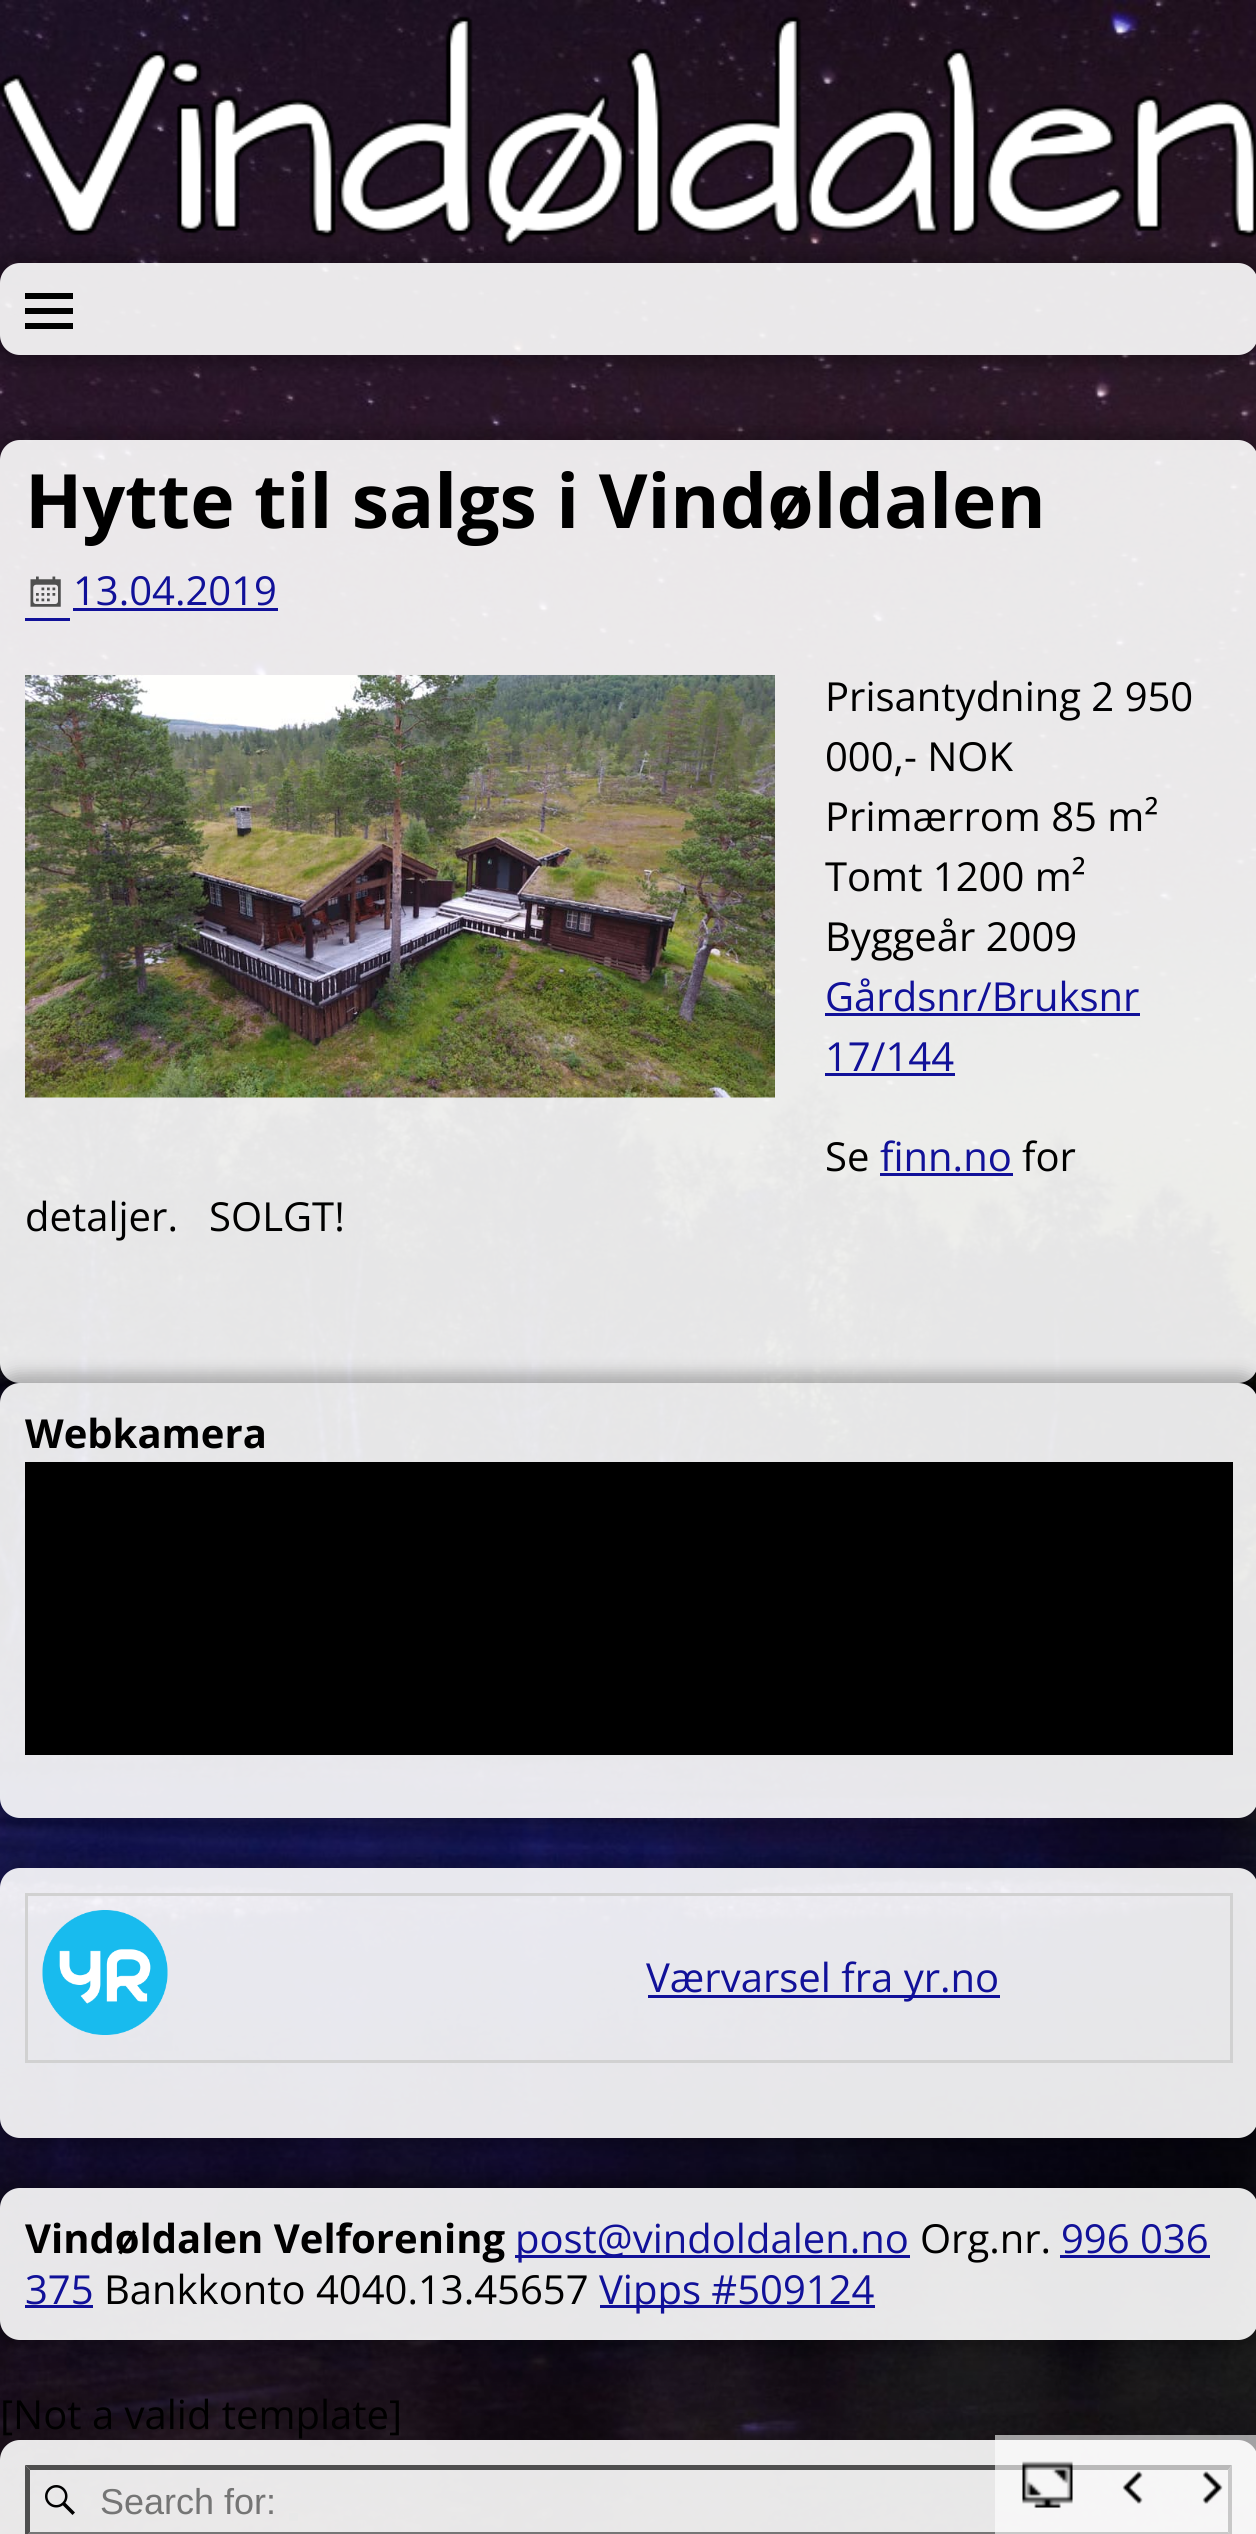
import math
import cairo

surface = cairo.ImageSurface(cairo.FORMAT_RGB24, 1256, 2534)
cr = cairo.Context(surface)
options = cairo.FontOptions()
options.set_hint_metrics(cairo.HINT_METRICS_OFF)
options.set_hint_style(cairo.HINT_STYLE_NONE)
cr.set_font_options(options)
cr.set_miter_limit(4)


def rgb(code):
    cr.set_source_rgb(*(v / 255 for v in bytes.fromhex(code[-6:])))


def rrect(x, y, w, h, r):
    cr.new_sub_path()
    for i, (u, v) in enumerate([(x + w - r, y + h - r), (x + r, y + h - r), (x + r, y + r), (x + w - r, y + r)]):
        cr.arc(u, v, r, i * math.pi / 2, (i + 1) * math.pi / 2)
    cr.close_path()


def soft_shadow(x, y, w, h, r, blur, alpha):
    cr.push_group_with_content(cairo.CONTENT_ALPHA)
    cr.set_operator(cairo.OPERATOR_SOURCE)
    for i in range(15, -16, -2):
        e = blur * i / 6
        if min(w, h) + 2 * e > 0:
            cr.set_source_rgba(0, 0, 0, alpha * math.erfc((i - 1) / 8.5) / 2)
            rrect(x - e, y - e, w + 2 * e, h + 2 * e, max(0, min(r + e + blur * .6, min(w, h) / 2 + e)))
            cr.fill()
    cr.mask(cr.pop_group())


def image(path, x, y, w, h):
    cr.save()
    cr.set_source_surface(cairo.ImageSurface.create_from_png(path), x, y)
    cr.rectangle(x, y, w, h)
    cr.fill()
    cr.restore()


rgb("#ffffff")
cr.paint()
image("img/1.png", 0, 0, 1256, 2534)
image("img/2.png", 0, 16, 1256, 232)
cr.save()
cr.set_fill_rule(cairo.FILL_RULE_EVEN_ODD)
cr.new_path()
cr.move_to(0, 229)
cr.line_to(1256, 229)
cr.line_to(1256, 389)
cr.line_to(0, 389)
cr.close_path()
cr.move_to(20, 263)
cr.line_to(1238, 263)
cr.curve_to(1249, 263, 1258, 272, 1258, 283)
cr.line_to(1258, 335)
cr.curve_to(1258, 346, 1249, 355, 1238, 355)
cr.line_to(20, 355)
cr.curve_to(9, 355, 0, 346, 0, 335)
cr.line_to(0, 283)
cr.curve_to(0, 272, 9, 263, 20, 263)
cr.close_path()
cr.clip()
rgb("#000000")
soft_shadow(-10, 253, 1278, 112, 30, 7.5, 0.25)
cr.restore()
cr.set_source_rgba(1, 1, 1, 0.9)
rrect(0, 263, 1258, 92, 20)
cr.fill()
rgb("#000000")
cr.new_path()
cr.move_to(25, 329)
cr.line_to(25, 323)
cr.line_to(73, 323)
cr.line_to(73, 329)
cr.close_path()
cr.move_to(25, 293)
cr.line_to(73, 293)
cr.line_to(73, 299)
cr.line_to(25, 299)
cr.close_path()
cr.move_to(25, 314)
cr.line_to(25, 308)
cr.line_to(73, 308)
cr.line_to(73, 314)
cr.close_path()
cr.fill()
cr.save()
cr.set_fill_rule(cairo.FILL_RULE_EVEN_ODD)
cr.new_path()
cr.move_to(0, 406)
cr.line_to(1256, 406)
cr.line_to(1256, 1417)
cr.line_to(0, 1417)
cr.close_path()
cr.move_to(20, 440)
cr.line_to(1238, 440)
cr.curve_to(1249, 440, 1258, 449, 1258, 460)
cr.line_to(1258, 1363)
cr.curve_to(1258, 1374, 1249, 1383, 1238, 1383)
cr.line_to(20, 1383)
cr.curve_to(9, 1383, 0, 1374, 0, 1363)
cr.line_to(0, 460)
cr.curve_to(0, 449, 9, 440, 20, 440)
cr.close_path()
cr.clip()
rgb("#000000")
soft_shadow(-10, 430, 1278, 963, 30, 7.5, 0.25)
cr.restore()
cr.set_source_rgba(1, 1, 1, 0.9)
rrect(0, 440, 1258, 943, 20)
cr.fill()
image("img/3.png", 30, 576, 31, 31)
rgb("#111199")
cr.rectangle(25, 618, 45, 3)
cr.fill()
cr.rectangle(73, 608, 205, 3)
cr.fill()
image("img/4.png", 25, 675, 750, 423)
for x, y, w, h, color in [
    (825, 1013, 315, 3, "#111199"),
    (825, 1073, 130, 3, "#111199"),
    (880, 1173, 133, 3, "#111199"),
]:
    rgb(color)
    cr.rectangle(x, y, w, h)
    cr.fill()
cr.save()
cr.set_fill_rule(cairo.FILL_RULE_EVEN_ODD)
cr.new_path()
cr.move_to(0, 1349)
cr.line_to(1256, 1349)
cr.line_to(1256, 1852)
cr.line_to(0, 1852)
cr.close_path()
cr.move_to(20, 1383)
cr.line_to(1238, 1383)
cr.curve_to(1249, 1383, 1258, 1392, 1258, 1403)
cr.line_to(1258, 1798)
cr.curve_to(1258, 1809, 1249, 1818, 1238, 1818)
cr.line_to(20, 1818)
cr.curve_to(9, 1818, 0, 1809, 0, 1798)
cr.line_to(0, 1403)
cr.curve_to(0, 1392, 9, 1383, 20, 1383)
cr.close_path()
cr.clip()
rgb("#000000")
soft_shadow(-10, 1373, 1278, 455, 30, 7.5, 0.25)
cr.restore()
cr.set_source_rgba(1, 1, 1, 0.9)
rrect(0, 1383, 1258, 435, 20)
cr.fill()
rgb("#000000")
cr.rectangle(25, 1462, 1208, 293)
cr.fill()
cr.save()
cr.set_fill_rule(cairo.FILL_RULE_EVEN_ODD)
cr.new_path()
cr.move_to(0, 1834)
cr.line_to(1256, 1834)
cr.line_to(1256, 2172)
cr.line_to(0, 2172)
cr.close_path()
cr.move_to(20, 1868)
cr.line_to(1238, 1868)
cr.curve_to(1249, 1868, 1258, 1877, 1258, 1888)
cr.line_to(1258, 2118)
cr.curve_to(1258, 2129, 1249, 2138, 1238, 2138)
cr.line_to(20, 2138)
cr.curve_to(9, 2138, 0, 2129, 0, 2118)
cr.line_to(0, 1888)
cr.curve_to(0, 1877, 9, 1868, 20, 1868)
cr.close_path()
cr.clip()
rgb("#000000")
soft_shadow(-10, 1858, 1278, 290, 30, 7.5, 0.25)
cr.restore()
cr.set_source_rgba(1, 1, 1, 0.9)
rrect(0, 1868, 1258, 270, 20)
cr.fill()
for x, y, w, h, color in [
    (25, 1893, 1208, 3, "#d1d1d1"),
    (1230, 1893, 3, 170, "#d1d1d1"),
    (25, 2060, 1208, 3, "#d1d1d1"),
    (25, 1893, 3, 170, "#d1d1d1"),
]:
    rgb(color)
    cr.rectangle(x, y, w, h)
    cr.fill()
image("img/5.png", 42, 1910, 126, 125)
rgb("#111199")
cr.rectangle(648, 1995, 352, 3)
cr.fill()
cr.save()
cr.set_fill_rule(cairo.FILL_RULE_EVEN_ODD)
cr.new_path()
cr.move_to(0, 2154)
cr.line_to(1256, 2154)
cr.line_to(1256, 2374)
cr.line_to(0, 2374)
cr.close_path()
cr.move_to(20, 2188)
cr.line_to(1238, 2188)
cr.curve_to(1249, 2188, 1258, 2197, 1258, 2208)
cr.line_to(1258, 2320)
cr.curve_to(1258, 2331, 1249, 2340, 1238, 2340)
cr.line_to(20, 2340)
cr.curve_to(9, 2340, 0, 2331, 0, 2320)
cr.line_to(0, 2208)
cr.curve_to(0, 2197, 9, 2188, 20, 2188)
cr.close_path()
cr.clip()
rgb("#000000")
soft_shadow(-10, 2178, 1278, 172, 30, 7.5, 0.25)
cr.restore()
cr.set_source_rgba(1, 1, 1, 0.9)
rrect(0, 2188, 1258, 152, 20)
cr.fill()
for x, y, w, h, color in [
    (515, 2255, 395, 3, "#111199"),
    (1060, 2255, 150, 3, "#111199"),
    (25, 2305, 68, 3, "#111199"),
    (600, 2305, 275, 3, "#111199"),
]:
    rgb(color)
    cr.rectangle(x, y, w, h)
    cr.fill()
cr.set_source_rgba(1, 1, 1, 0.9)
rrect(0, 2440, 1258, 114, 20)
cr.fill()
image("img/6.png", 45, 2485, 30, 30)
rgb("#e8e8e8")
cr.rectangle(289, 2513, 9, 8)
cr.fill()
rgb("#4f4f4f")
cr.new_path()
cr.move_to(25, 2465)
cr.line_to(1232, 2465)
cr.line_to(1228, 2470)
cr.line_to(30, 2470)
cr.close_path()
cr.fill()
rgb("#767676")
cr.new_path()
cr.move_to(1232, 2465)
cr.line_to(1232, 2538)
cr.line_to(1228, 2532)
cr.line_to(1228, 2470)
cr.close_path()
cr.fill()
cr.new_path()
cr.move_to(1232, 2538)
cr.line_to(25, 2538)
cr.line_to(30, 2532)
cr.line_to(1228, 2532)
cr.close_path()
cr.fill()
rgb("#4f4f4f")
cr.new_path()
cr.move_to(25, 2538)
cr.line_to(25, 2465)
cr.line_to(30, 2470)
cr.line_to(30, 2532)
cr.close_path()
cr.fill()
cr.set_source_rgba(1, 1, 1, 0.6)
cr.rectangle(995, 2435, 261, 99)
cr.fill()
image("img/7.png", 1022, 2461, 51, 47)
image("img/8.png", 1122, 2471, 21, 33)
image("img/9.png", 1202, 2471, 21, 33)
cr.select_font_face("Open Sans", cairo.FONT_SLANT_NORMAL, cairo.FONT_WEIGHT_BOLD)
cr.set_font_size(75)
rgb("#000000")
cr.move_to(25, 528)
cr.show_text("Hytte til salgs i Vindøldalen")
cr.select_font_face("Open Sans")
cr.set_font_size(40)
rgb("#111199")
cr.move_to(73, 605)
cr.show_text("13.04.2019")
rgb("#000000")
for x, y, s in [
    (825, 711, "Prisantydning 2 950"),
    (825, 771, "000,- NOK"),
    (825, 831, "Primærrom 85 m²"),
    (825, 891, "Tomt 1200 m²"),
    (825, 951, "Byggeår 2009"),
]:
    cr.move_to(x, y)
    cr.show_text(s)
rgb("#111199")
cr.move_to(825, 1011)
cr.show_text("Gårdsnr/Bruksnr")
cr.move_to(825, 1071)
cr.show_text("17/144")
rgb("#000000")
cr.move_to(825, 1171)
cr.show_text("Se")
rgb("#111199")
cr.move_to(880, 1171)
cr.show_text("finn.no")
rgb("#000000")
cr.move_to(1022, 1171)
cr.show_text("for")
cr.move_to(25, 1231)
cr.show_text("detaljer.   SOLGT!")
cr.select_font_face("Open Sans", cairo.FONT_SLANT_NORMAL, cairo.FONT_WEIGHT_BOLD)
cr.move_to(25, 1448)
cr.show_text("Webkamera")
cr.select_font_face("Open Sans")
rgb("#111199")
cr.move_to(646, 1992)
cr.show_text("Værvarsel fra yr.no")
cr.select_font_face("Open Sans", cairo.FONT_SLANT_NORMAL, cairo.FONT_WEIGHT_BOLD)
rgb("#000000")
cr.move_to(25, 2253)
cr.show_text("Vindøldalen Velforening")
cr.select_font_face("Open Sans")
rgb("#111199")
cr.move_to(515, 2253)
cr.show_text("post@vindoldalen.no")
rgb("#000000")
cr.move_to(920, 2253)
cr.show_text("Org.nr.")
rgb("#111199")
cr.move_to(1061, 2253)
cr.show_text("996 036")
cr.move_to(25, 2304)
cr.show_text("375")
rgb("#000000")
cr.move_to(104, 2304)
cr.show_text("Bankkonto 4040.13.45657")
rgb("#111199")
cr.move_to(599, 2304)
cr.show_text("Vipps #509124")
rgb("#000000")
cr.move_to(0, 2429)
cr.show_text("[Not a valid template]")
cr.select_font_face("Liberation Sans")
cr.set_font_size(36)
rgb("#757575")
cr.move_to(100, 2514)
cr.show_text("Search for:")
surface.write_to_png("page.png")
